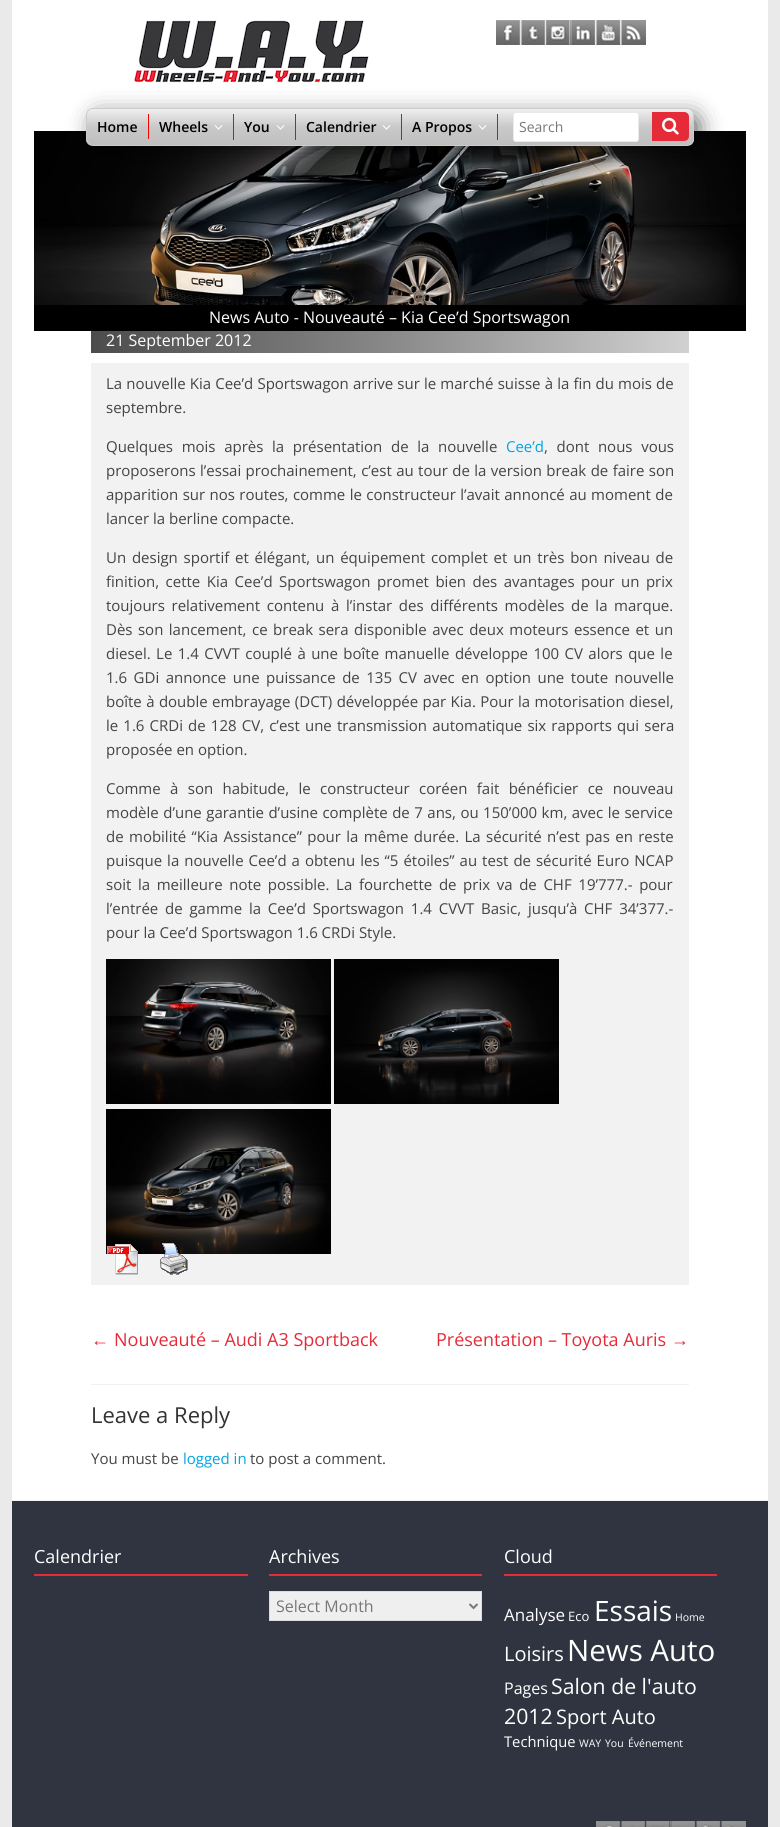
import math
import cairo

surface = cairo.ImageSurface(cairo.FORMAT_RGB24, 780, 1827)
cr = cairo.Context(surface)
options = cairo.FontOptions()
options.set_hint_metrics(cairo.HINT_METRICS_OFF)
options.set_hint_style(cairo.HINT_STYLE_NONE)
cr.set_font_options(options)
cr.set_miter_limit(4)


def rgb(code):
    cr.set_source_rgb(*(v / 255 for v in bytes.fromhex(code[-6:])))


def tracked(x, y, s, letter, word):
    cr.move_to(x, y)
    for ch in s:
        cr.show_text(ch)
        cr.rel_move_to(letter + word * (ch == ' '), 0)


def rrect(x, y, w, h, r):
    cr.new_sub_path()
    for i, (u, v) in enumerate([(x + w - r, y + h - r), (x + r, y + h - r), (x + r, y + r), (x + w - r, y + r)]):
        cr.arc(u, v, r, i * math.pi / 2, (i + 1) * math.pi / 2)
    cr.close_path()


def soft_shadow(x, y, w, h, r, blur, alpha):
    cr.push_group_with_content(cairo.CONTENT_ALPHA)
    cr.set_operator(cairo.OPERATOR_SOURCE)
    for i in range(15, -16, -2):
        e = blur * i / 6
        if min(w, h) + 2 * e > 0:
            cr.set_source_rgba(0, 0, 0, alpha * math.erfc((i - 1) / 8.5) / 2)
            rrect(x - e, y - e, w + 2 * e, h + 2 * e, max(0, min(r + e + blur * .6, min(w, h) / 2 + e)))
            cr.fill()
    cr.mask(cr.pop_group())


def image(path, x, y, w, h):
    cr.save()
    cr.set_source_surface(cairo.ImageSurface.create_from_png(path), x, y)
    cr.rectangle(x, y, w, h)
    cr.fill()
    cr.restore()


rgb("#eaeaea")
cr.paint()
rgb("#ffffff")
cr.rectangle(12, 0, 756, 1500)
cr.fill()
image("img/1.png", 134, 20, 235, 63)
image("img/2.png", 496, 20, 25, 25)
image("img/3.png", 521, 20, 25, 25)
image("img/4.png", 546, 20, 25, 25)
image("img/5.png", 571, 20, 25, 25)
image("img/6.png", 596, 20, 25, 25)
image("img/7.png", 621, 20, 25, 25)
image("img/10.png", 34, 131, 712, 174)
rgb("#000000")
soft_shadow(96, 118, 600, 30, 3, 12.5, 0.75)
cr.save()
rrect(86, 108, 608, 38, 7)
cr.clip()
gradient = cairo.LinearGradient(390, 109, 390, 145)
gradient.add_color_stop_rgba(0, 0.937, 0.937, 0.937, 1)
gradient.add_color_stop_rgba(0.5, 0.788, 0.788, 0.788, 1)
gradient.add_color_stop_rgba(1, 0.749, 0.749, 0.749, 1)
cr.set_source(gradient)
cr.rectangle(86, 109, 608, 36)
cr.fill()
cr.restore()
rrect(86.5, 108.5, 607, 37, 6.5)
rgb("#cccccc")
cr.set_line_width(1)
cr.stroke()
rgb("#ff0000")
cr.rectangle(148, 114, 1, 25)
cr.fill()
cr.rectangle(233, 114, 1, 26)
cr.fill()
image("img/8.png", 214, 125, 9, 5)
cr.rectangle(295, 114, 1, 26)
cr.fill()
image("img/8.png", 276, 125, 9, 5)
cr.rectangle(401, 114, 1, 26)
cr.fill()
image("img/8.png", 382, 125, 9, 5)
cr.rectangle(497, 114, 1, 26)
cr.fill()
image("img/8.png", 478, 125, 9, 5)
rgb("#ffffff")
rrect(513.5, 112.5, 125, 29, 2.5)
cr.fill_preserve()
rgb("#eaeaea")
cr.stroke()
rgb("#e52b38")
cr.new_path()
cr.move_to(652, 112)
cr.line_to(684, 112)
cr.curve_to(687, 112, 689, 114, 689, 117)
cr.line_to(689, 136)
cr.curve_to(689, 139, 687, 141, 684, 141)
cr.line_to(652, 141)
cr.close_path()
cr.fill()
image("img/9.png", 662, 117, 17, 18)
rgb("#000000")
cr.rectangle(34, 305, 712, 26)
cr.fill()
gradient = cairo.LinearGradient(91, 330, 689, 330)
gradient.add_color_stop_rgba(0, 0.298, 0.298, 0.298, 1)
gradient.add_color_stop_rgba(0.5, 0.537, 0.537, 0.537, 1)
gradient.add_color_stop_rgba(1, 0.82, 0.82, 0.82, 1)
cr.set_source(gradient)
cr.rectangle(91, 331, 598, 22)
cr.fill()
rgb("#f2f2f2")
cr.rectangle(91, 363, 598, 922)
cr.fill()
image("img/11.png", 106, 959, 225, 145)
image("img/12.png", 334, 959, 225, 145)
image("img/13.png", 106, 1109, 225, 145)
image("img/14.png", 107, 1244, 31, 31)
image("img/15.png", 160, 1243, 28, 32)
for x, y, w, h, color in [
    (91, 1384, 598, 1, "#f2f2f2"),
    (12, 1501, 756, 326, "#303440"),
    (12, 1500, 756, 1, "#f2f2f2"),
    (34, 1574, 214, 2, "#e52b38"),
    (269, 1574, 213, 2, "#e52b38"),
]:
    rgb(color)
    cr.rectangle(x, y, w, h)
    cr.fill()
rgb("#efefef")
cr.rectangle(269.5, 1591.5, 212, 29)
cr.fill_preserve()
rgb("#dddddd")
cr.stroke()
cr.new_path()
cr.move_to(469.5, 1604)
cr.line_to(473.5, 1608)
cr.line_to(477.5, 1604)
rgb("#777777")
cr.set_line_width(2)
cr.stroke()
rgb("#e52b38")
cr.rectangle(504, 1574, 213, 2)
cr.fill()
image("img/16.png", 596, 1821, 25, 6)
image("img/17.png", 621, 1821, 25, 6)
image("img/18.png", 646, 1821, 25, 6)
image("img/19.png", 671, 1821, 25, 6)
image("img/20.png", 696, 1821, 25, 6)
image("img/21.png", 721, 1821, 25, 6)
cr.select_font_face("Open Sans SemiBold")
cr.set_font_size(14)
rgb("#000000")
for x, y, s in [
    (97, 132, "Home"),
    (159, 132, "Wheels"),
    (244, 132, "You"),
    (306, 132, "Calendrier"),
    (412, 132, "A Propos"),
]:
    cr.move_to(x, y)
    cr.show_text(s)
cr.select_font_face("Open Sans")
rgb("#777777")
cr.move_to(519, 132)
cr.show_text("Search")
cr.set_font_size(16)
rgb("#ffffff")
cr.move_to(209, 323)
cr.show_text("News Auto - Nouveauté – Kia Cee’d Sportswagon")
cr.move_to(106, 346)
cr.show_text("21 September 2012")
cr.set_font_size(15)
rgb("#444444")
tracked(106, 389, "La nouvelle Kia Cee’d Sportswagon arrive sur le marché suisse à la fin du mois de", 0, 0.25)
cr.move_to(106, 413)
cr.show_text("septembre.")
tracked(106, 452, "Quelques mois après la présentation de la nouvelle", 0, 4.75)
rgb("#00a5e4")
cr.move_to(506, 452)
cr.show_text("Cee’d")
rgb("#444444")
tracked(544, 452, ", dont nous vous", 0, 4.75)
tracked(106, 476, "proposerons l’essai prochainement, c’est au tour de la version break de faire son", 0, 0.5)
tracked(106, 500, "apparition sur nos routes, comme le constructeur l’avait annoncé au moment de", 0, 0.5)
cr.move_to(106, 524)
cr.show_text("lancer la berline compacte.")
tracked(106, 563, "Un design sportif et élégant, un équipement complet et un très bon niveau de", 0, 1.9)
tracked(106, 587, "finition, cette Kia Cee’d Sportswagon promet bien des avantages pour un prix", 0, 2.6)
tracked(106, 611, "toujours relativement contenu à l’instar des différents modèles de la marque.", 0, 2.75)
tracked(106, 635, "Dès son lancement, ce break sera disponible avec deux moteurs essence et un", 0, 1.6)
tracked(106, 659, "diesel. Le 1.4 CVVT couplé à une boîte manuelle développe 100 CV alors que le", 0, 1.5)
tracked(106, 683, "1.6 GDi annonce une puissance de 135 CV avec en option une toute nouvelle", 0, 2.6)
tracked(106, 707, "boîte à double embrayage (DCT) développée par Kia. Pour la motorisation diesel,", 0, 0.5)
tracked(106, 731, "le 1.6 CRDi de 128 CV, c’est une transmission automatique six rapports qui sera", 0, 1.25)
cr.move_to(106, 755)
cr.show_text("proposée en option.")
tracked(106, 794, "Comme à son habitude, le constructeur coréen fait bénéficier ce nouveau", 0, 5.5)
tracked(106, 818, "modèle d’une garantie d’usine complète de 7 ans, ou 150’000 km, avec le service", 0, 0.6)
tracked(106, 842, "de mobilité “Kia Assistance” pour la même durée. La sécurité n’est pas en reste", 0, 1.5)
tracked(106, 866, "puisque la nouvelle Cee’d a obtenu les “5 étoiles” au test de sécurité Euro NCAP", 0, 1.1)
tracked(106, 890, "soit la meilleure note possible. La fourchette de prix va de CHF 19’777.- pour", 0, 2.75)
tracked(106, 914, "l’entrée de gamme la Cee’d Sportswagon 1.4 CVVT Basic, jusqu’à CHF 34’377.-", 0, 2.9)
cr.move_to(106, 938)
cr.show_text("pour la Cee’d Sportswagon 1.6 CRDi Style.")
cr.select_font_face("Liberation Serif")
cr.set_font_size(18)
rgb("#e52b38")
cr.move_to(91, 1346)
cr.show_text("←")
cr.select_font_face("Open Sans")
cr.move_to(114, 1346)
cr.show_text("Nouveauté – Audi A3 Sportback")
cr.move_to(436, 1346)
cr.show_text("Présentation – Toyota Auris")
cr.select_font_face("Liberation Serif")
cr.move_to(671, 1346)
cr.show_text("→")
cr.select_font_face("Open Sans")
cr.set_font_size(22)
rgb("#333333")
cr.move_to(91, 1423)
cr.show_text("Leave a Reply")
cr.set_font_size(15)
rgb("#444444")
cr.move_to(91, 1464)
cr.show_text("You must be")
rgb("#00a5e4")
cr.move_to(183, 1464)
cr.show_text("logged in")
rgb("#444444")
cr.move_to(250, 1464)
cr.show_text("to post a comment.")
cr.set_font_size(18)
rgb("#ffffff")
cr.move_to(34, 1563)
cr.show_text("Calendrier")
cr.move_to(269, 1563)
cr.show_text("Archives")
cr.set_font_size(16)
rgb("#777777")
cr.move_to(276, 1612)
cr.show_text("Select Month")
cr.set_font_size(18)
rgb("#ffffff")
cr.move_to(504, 1563)
cr.show_text("Cloud")
cr.set_font_size(17)
cr.move_to(504, 1621)
cr.show_text("Analyse")
cr.set_font_size(13)
cr.move_to(568, 1621)
cr.show_text("Eco")
cr.set_font_size(28)
cr.move_to(594, 1621)
cr.show_text("Essais")
cr.set_font_size(10.5)
cr.move_to(675, 1621)
cr.show_text("Home")
cr.set_font_size(20)
cr.move_to(504, 1661)
cr.show_text("Loisirs")
cr.set_font_size(29.5)
cr.move_to(567, 1661)
cr.show_text("News Auto")
cr.set_font_size(16)
cr.move_to(504, 1694)
cr.show_text("Pages")
cr.set_font_size(21.25)
cr.move_to(551, 1694)
cr.show_text("Salon de l'auto")
cr.move_to(504, 1724)
cr.show_text("2012")
cr.set_font_size(20)
cr.move_to(556, 1724)
cr.show_text("Sport Auto")
cr.set_font_size(14.75)
cr.move_to(504, 1747)
cr.show_text("Technique")
cr.set_font_size(10.5)
for x, y, s in [
    (579, 1747, "WAY"),
    (605, 1747, "You"),
    (628, 1747, "Événement"),
]:
    cr.move_to(x, y)
    cr.show_text(s)
surface.write_to_png("page.png")
